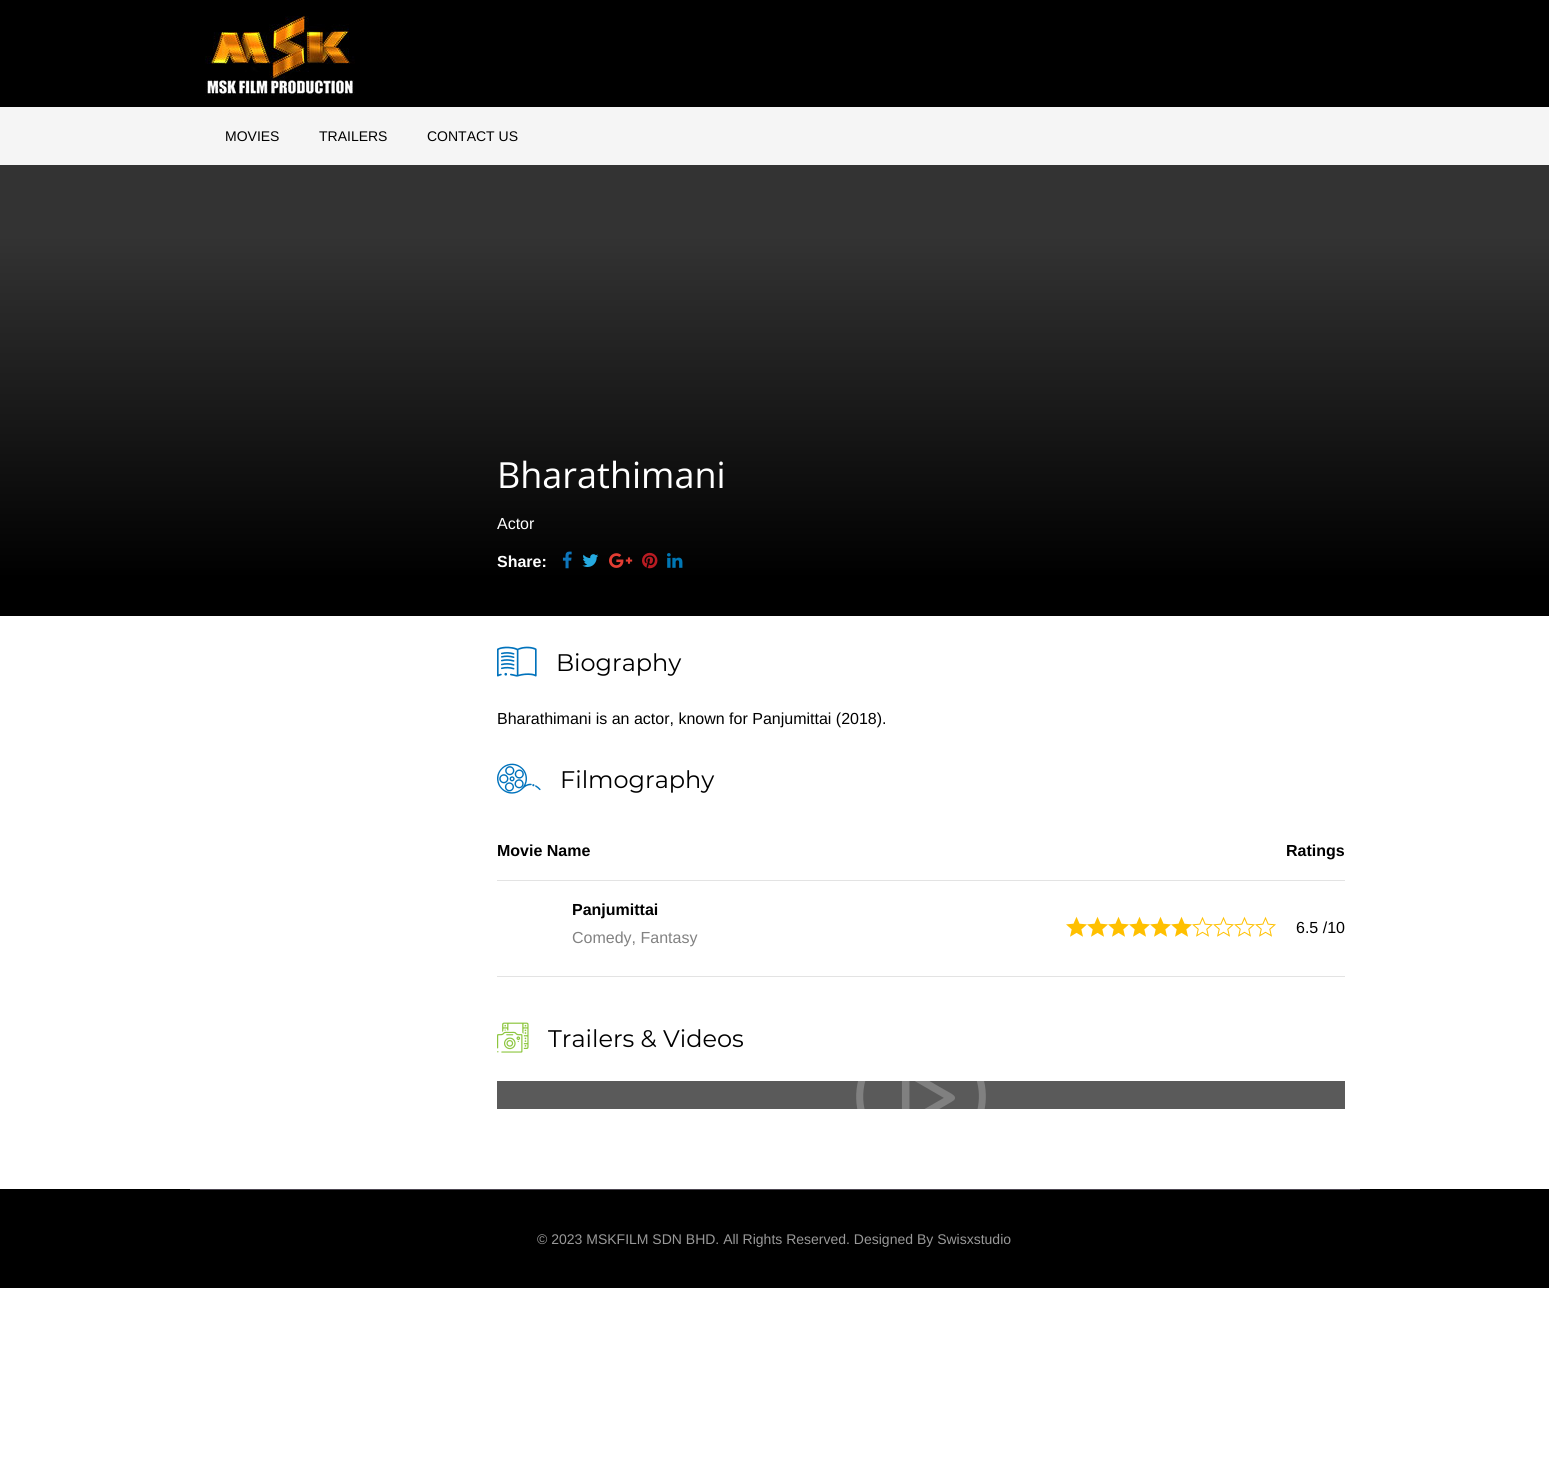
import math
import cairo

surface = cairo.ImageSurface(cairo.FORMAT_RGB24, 1549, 1473)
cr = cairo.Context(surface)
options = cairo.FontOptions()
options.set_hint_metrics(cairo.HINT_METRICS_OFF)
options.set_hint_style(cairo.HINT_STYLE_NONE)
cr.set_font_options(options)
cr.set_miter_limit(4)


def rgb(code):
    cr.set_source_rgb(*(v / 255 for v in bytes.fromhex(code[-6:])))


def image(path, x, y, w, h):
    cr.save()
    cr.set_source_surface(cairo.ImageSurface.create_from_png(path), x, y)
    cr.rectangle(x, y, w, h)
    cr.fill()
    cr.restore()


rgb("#ffffff")
cr.paint()
rgb("#000000")
cr.rectangle(0, 0, 1549, 107)
cr.fill()
image("img/1.png", 205, 16, 150, 80)
rgb("#f5f5f5")
cr.rectangle(0, 107, 1549, 58)
cr.fill()
rgb("#333333")
cr.rectangle(0, 165, 1549, 71)
cr.fill()
gradient = cairo.LinearGradient(775, 236, 775, 616)
gradient.add_color_stop_rgba(0, 0.2, 0.2, 0.2, 1)
gradient.add_color_stop_rgba(0.9, 0, 0, 0, 1)
cr.set_source(gradient)
cr.rectangle(0, 236, 1549, 380)
cr.fill()
image("img/2.png", 562, 551, 10, 18)
image("img/3.png", 582, 554, 17, 13)
image("img/4.png", 609, 553, 24, 15)
image("img/5.png", 642, 552, 16, 17)
image("img/6.png", 667, 553, 16, 15)
image("img/7.png", 497, 646, 40, 31)
image("img/8.png", 497, 763, 44, 31)
rgb("#e3e3e3")
cr.rectangle(497, 880, 848, 1)
cr.fill()
cr.rectangle(497, 976, 848, 1)
cr.fill()
image("img/9.png", 1066, 916, 21, 21)
image("img/9.png", 1087, 916, 21, 21)
image("img/9.png", 1108, 916, 21, 21)
image("img/9.png", 1129, 916, 21, 21)
image("img/9.png", 1150, 916, 21, 21)
image("img/9.png", 1171, 916, 21, 21)
image("img/10.png", 1192, 916, 21, 21)
image("img/10.png", 1213, 916, 21, 21)
image("img/10.png", 1234, 916, 21, 21)
image("img/10.png", 1255, 916, 21, 21)
image("img/11.png", 497, 1022, 32, 31)
rgb("#5a5a5a")
cr.rectangle(497, 1081, 848, 28)
cr.fill()
image("img/12.png", 856, 1081, 130, 28)
rgb("#000000")
cr.rectangle(0, 1189, 1549, 99)
cr.fill()
rgb("#4d4752")
cr.rectangle(190, 1189, 1170, 1)
cr.fill()
cr.select_font_face("Liberation Sans")
cr.set_font_size(14)
rgb("#000000")
for x, y, s in [
    (225, 141, "MOVIES"),
    (319, 141, "TRAILERS"),
    (427, 141, "CONTACT US"),
]:
    cr.move_to(x, y)
    cr.show_text(s)
cr.select_font_face("Open Sans")
cr.set_font_size(36)
rgb("#ffffff")
cr.move_to(497, 488)
cr.show_text("Bharathimani")
cr.select_font_face("Liberation Sans")
cr.set_font_size(16)
cr.move_to(497, 529)
cr.show_text("Actor")
cr.select_font_face("Liberation Sans", cairo.FONT_SLANT_NORMAL, cairo.FONT_WEIGHT_BOLD)
cr.move_to(497, 567)
cr.show_text("Share:")
cr.select_font_face("Montserrat")
cr.set_font_size(24)
rgb("#000000")
cr.move_to(556, 671)
cr.show_text("Biography")
cr.select_font_face("Liberation Sans")
cr.set_font_size(16)
cr.move_to(497, 724)
cr.show_text("Bharathimani is an actor, known for Panjumittai (2018).")
cr.select_font_face("Montserrat")
cr.set_font_size(24)
cr.move_to(560, 788)
cr.show_text("Filmography")
cr.select_font_face("Liberation Sans", cairo.FONT_SLANT_NORMAL, cairo.FONT_WEIGHT_BOLD)
cr.set_font_size(16)
for x, y, s in [
    (497, 856, "Movie Name"),
    (1286, 856, "Ratings"),
    (572, 915, "Panjumittai"),
]:
    cr.move_to(x, y)
    cr.show_text(s)
cr.select_font_face("Liberation Sans")
rgb("#828282")
cr.move_to(572, 943)
cr.show_text("Comedy, Fantasy")
rgb("#000000")
cr.move_to(1296, 933)
cr.show_text("6.5 /10")
cr.select_font_face("Montserrat")
cr.set_font_size(24)
cr.move_to(548, 1047)
cr.show_text("Trailers & Videos")
cr.select_font_face("Liberation Sans")
cr.set_font_size(14)
rgb("#999999")
cr.move_to(537, 1244)
cr.show_text("© 2023 MSKFILM SDN BHD. All Rights Reserved. Designed By Swisxstudio")
surface.write_to_png("page.png")
